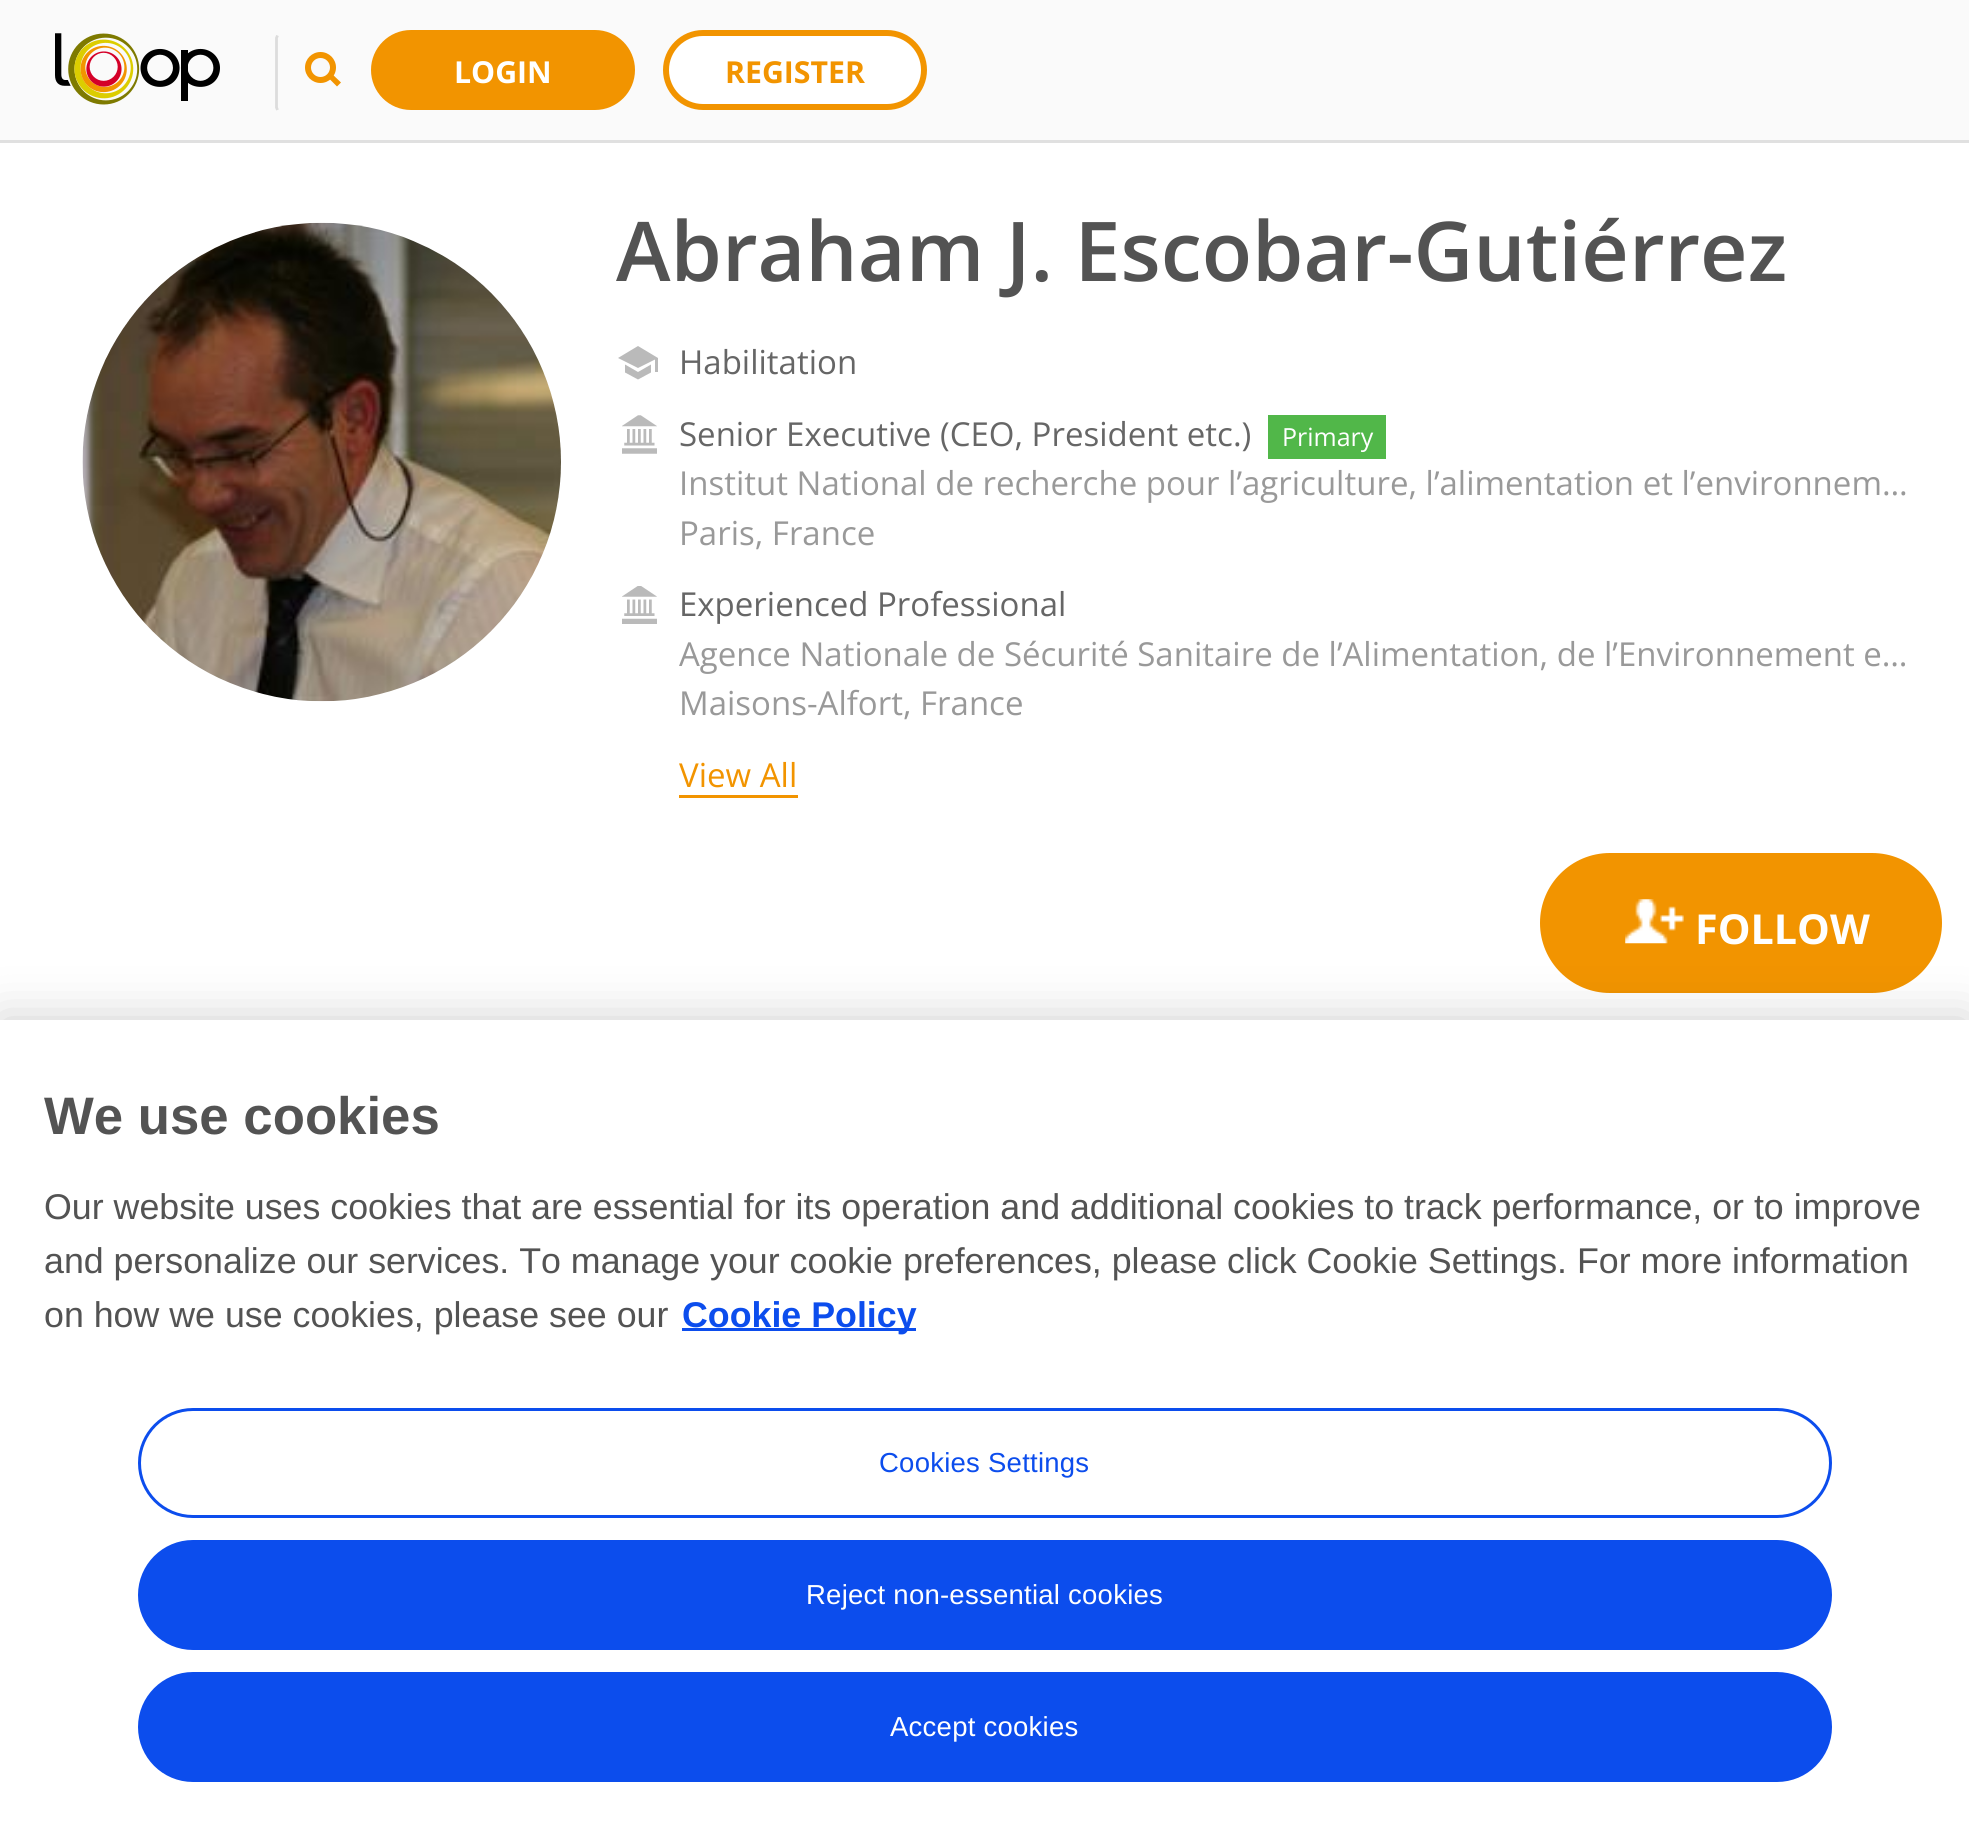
import math
import cairo

surface = cairo.ImageSurface(cairo.FORMAT_RGB24, 1969, 1848)
cr = cairo.Context(surface)
options = cairo.FontOptions()
options.set_hint_metrics(cairo.HINT_METRICS_OFF)
options.set_hint_style(cairo.HINT_STYLE_NONE)
cr.set_font_options(options)
cr.set_miter_limit(4)


def rgb(code):
    cr.set_source_rgb(*(v / 255 for v in bytes.fromhex(code[-6:])))


def tracked(x, y, s, letter, word):
    cr.move_to(x, y)
    for ch in s:
        cr.show_text(ch)
        cr.rel_move_to(letter + word * (ch == ' '), 0)


def rrect(x, y, w, h, r):
    cr.new_sub_path()
    for i, (u, v) in enumerate([(x + w - r, y + h - r), (x + r, y + h - r), (x + r, y + r), (x + w - r, y + r)]):
        cr.arc(u, v, r, i * math.pi / 2, (i + 1) * math.pi / 2)
    cr.close_path()


def soft_shadow(x, y, w, h, r, blur, alpha):
    cr.push_group_with_content(cairo.CONTENT_ALPHA)
    cr.set_operator(cairo.OPERATOR_SOURCE)
    for i in range(15, -16, -2):
        e = blur * i / 6
        if min(w, h) + 2 * e > 0:
            cr.set_source_rgba(0, 0, 0, alpha * math.erfc((i - 1) / 8.5) / 2)
            rrect(x - e, y - e, w + 2 * e, h + 2 * e, max(0, min(r + e + blur * .6, min(w, h) / 2 + e)))
            cr.fill()
    cr.mask(cr.pop_group())


def image(path, x, y, w, h):
    cr.save()
    cr.set_source_surface(cairo.ImageSurface.create_from_png(path), x, y)
    cr.rectangle(x, y, w, h)
    cr.fill()
    cr.restore()


rgb("#ffffff")
cr.paint()
rgb("#fafafa")
cr.rectangle(0, 0, 1969, 140)
cr.fill()
rgb("#e0e0e0")
cr.rectangle(0, 140, 1969, 3)
cr.fill()
image("img/1.png", 55, 33, 165, 72)
cr.new_path()
cr.move_to(277.5, 110)
cr.line_to(276.5, 107.5)
cr.line_to(276.5, 38)
cr.line_to(277.5, 35.5)
rgb("#dcdcdc")
cr.set_line_width(2.8)
cr.stroke()
rgb("#f29400")
cr.arc(320.5, 67.5, 15.5, 0, 2 * math.pi)
cr.fill()
rgb("#f9f9f9")
cr.arc(320.5, 67.5, 9.5, 0, 2 * math.pi)
cr.fill()
rgb("#f29400")
cr.new_path()
cr.move_to(331, 73)
cr.line_to(341, 82.5)
cr.line_to(337, 86.5)
cr.line_to(327.5, 77)
cr.close_path()
cr.fill()
rrect(374, 33, 258, 74, 37)
cr.fill_preserve()
cr.set_line_width(6)
cr.stroke()
rgb("#ffffff")
rrect(666, 33, 258, 74, 37)
cr.fill_preserve()
rgb("#f29400")
cr.stroke()
image("img/2.png", 82, 222, 479, 480)
rgb("#bababa")
cr.new_path()
cr.move_to(638, 346)
cr.line_to(618, 358)
cr.line_to(638, 368)
cr.line_to(658, 358)
cr.close_path()
cr.fill()
cr.new_path()
cr.move_to(651, 364.5)
cr.line_to(638, 372)
cr.line_to(625, 364.5)
cr.line_to(625, 372.5)
cr.line_to(638, 379.5)
cr.line_to(651, 372.5)
cr.close_path()
cr.fill()
cr.rectangle(655, 358, 3, 14)
cr.fill()
image("img/3.png", 622, 415, 35, 39)
rgb("#51b749")
cr.rectangle(1268, 415, 118, 44)
cr.fill()
image("img/4.png", 622, 586, 35, 38)
rgb("#f29400")
cr.rectangle(679, 795, 119, 3)
cr.fill()
rrect(1544, 857, 394, 132, 66)
cr.fill_preserve()
cr.set_line_width(8)
cr.stroke()
image("img/5.png", 1625, 899, 59, 45)
rgb("#000000")
soft_shadow(0, 1020, 1969, 828, 0, 25, 0.2)
rgb("#ffffff")
cr.rectangle(0, 1020, 1969, 828)
cr.fill()
rgb("#0c4ded")
cr.rectangle(682, 1328, 234, 3)
cr.fill()
rrect(139.5, 1409.5, 1691, 107, 53.5)
cr.set_line_width(3)
cr.stroke()
rrect(139.5, 1541.5, 1691, 107, 53.5)
cr.fill_preserve()
cr.stroke()
rrect(139.5, 1673.5, 1691, 107, 53.5)
cr.fill_preserve()
cr.stroke()
cr.select_font_face("Open Sans", cairo.FONT_SLANT_NORMAL, cairo.FONT_WEIGHT_BOLD)
cr.set_font_size(30.25)
rgb("#ffffff")
cr.move_to(454, 83)
cr.show_text("LOGIN")
rgb("#f29400")
cr.move_to(725, 83)
cr.show_text("REGISTER")
cr.select_font_face("Open Sans SemiBold")
cr.set_font_size(82.5)
rgb("#535353")
cr.move_to(616, 281)
cr.show_text("Abraham J. Escobar-Gutiérrez")
cr.select_font_face("Open Sans")
cr.set_font_size(33)
rgb("#666666")
cr.move_to(679, 374)
cr.show_text("Habilitation")
cr.move_to(679, 446)
cr.show_text("Senior Executive (CEO, President etc.)")
cr.set_font_size(25)
rgb("#ffffff")
cr.move_to(1282, 446)
cr.show_text("Primary")
cr.set_font_size(33)
rgb("#999999")
cr.move_to(679, 495)
cr.show_text("Institut National de recherche pour l’agriculture, l’alimentation et l’environnem…")
cr.move_to(679, 545)
cr.show_text("Paris, France")
rgb("#666666")
cr.move_to(679, 616)
cr.show_text("Experienced Professional")
rgb("#999999")
cr.move_to(679, 666)
cr.show_text("Agence Nationale de Sécurité Sanitaire de l’Alimentation, de l’Environnement e…")
cr.move_to(679, 715)
cr.show_text("Maisons-Alfort, France")
rgb("#f29400")
cr.move_to(679, 787)
cr.show_text("View All")
cr.select_font_face("Open Sans", cairo.FONT_SLANT_NORMAL, cairo.FONT_WEIGHT_BOLD)
cr.set_font_size(41.25)
rgb("#ffffff")
cr.move_to(1695, 944)
cr.show_text("FOLLOW")
cr.select_font_face("Liberation Sans", cairo.FONT_SLANT_NORMAL, cairo.FONT_WEIGHT_BOLD)
cr.set_font_size(52.75)
rgb("#535353")
cr.move_to(44, 1134)
cr.show_text("We use cookies")
cr.select_font_face("Liberation Sans")
cr.set_font_size(35.77)
for x, y, s in [
    (44, 1219, "Our website uses cookies that are essential for its operation and additional cookies to track performance, or to improve"),
    (44, 1273, "and personalize our services. To manage your cookie preferences, please click Cookie Settings. For more information"),
    (44, 1327, "on how we use cookies, please see our"),
]:
    cr.move_to(x, y)
    cr.show_text(s)
cr.select_font_face("Liberation Sans", cairo.FONT_SLANT_NORMAL, cairo.FONT_WEIGHT_BOLD)
rgb("#0c4ded")
cr.move_to(682, 1327)
cr.show_text("Cookie Policy")
cr.select_font_face("Liberation Sans")
cr.set_font_size(27.5)
tracked(879, 1472, "Cookies Settings", 0.25, 0)
rgb("#ffffff")
tracked(806, 1604, "Reject non-essential cookies", 0.25, 0)
tracked(890, 1736, "Accept cookies", 0.25, 0)
surface.write_to_png("page.png")
